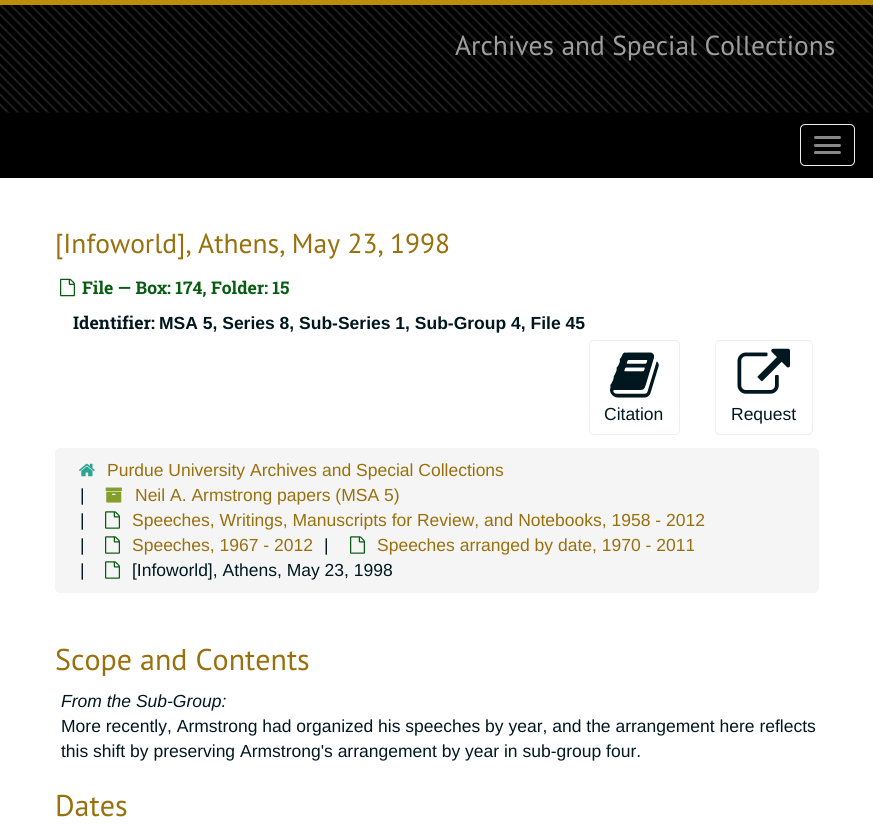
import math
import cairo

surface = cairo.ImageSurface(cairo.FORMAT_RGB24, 873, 828)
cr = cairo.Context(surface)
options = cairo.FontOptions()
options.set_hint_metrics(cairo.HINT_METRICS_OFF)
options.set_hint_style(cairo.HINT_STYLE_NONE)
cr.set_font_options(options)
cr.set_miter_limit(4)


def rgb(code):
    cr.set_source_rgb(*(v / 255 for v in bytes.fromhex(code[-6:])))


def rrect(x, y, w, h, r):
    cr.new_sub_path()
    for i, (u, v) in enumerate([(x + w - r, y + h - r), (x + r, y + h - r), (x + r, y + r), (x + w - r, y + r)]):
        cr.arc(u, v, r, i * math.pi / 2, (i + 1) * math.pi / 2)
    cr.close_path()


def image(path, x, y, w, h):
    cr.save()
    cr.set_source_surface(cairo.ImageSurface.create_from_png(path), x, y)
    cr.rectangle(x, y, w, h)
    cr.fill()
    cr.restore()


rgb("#ffffff")
cr.paint()
rgb("#000000")
cr.rectangle(0, 112, 873, 66)
cr.fill()
image("img/1.png", 0, 5, 873, 108)
rgb("#bb8d0a")
cr.rectangle(0, 0, 873, 5)
cr.fill()
rrect(800.5, 124.5, 54, 41, 4.5)
rgb("#eeeeee")
cr.set_line_width(1)
cr.stroke()
rgb("#888888")
rrect(814, 136, 27, 3, 1.5)
cr.fill()
rrect(814, 144, 27, 3, 1.5)
cr.fill()
rrect(814, 151, 27, 3, 1.5)
cr.fill()
image("img/2.png", 60, 278, 15, 19)
rrect(589.5, 340.5, 90, 94, 4.5)
rgb("#eeeeee")
cr.stroke()
image("img/3.png", 610, 352, 49, 46)
rrect(715.5, 340.5, 97, 94, 4.5)
cr.stroke()
image("img/4.png", 737, 348, 53, 46)
rgb("#f5f5f5")
rrect(55, 448, 764, 145, 5)
cr.fill()
image("img/5.png", 79, 463, 16, 14)
image("img/6.png", 105, 487, 17, 16)
image("img/7.png", 105, 511, 15, 18)
image("img/7.png", 105, 536, 15, 18)
image("img/7.png", 350, 536, 15, 18)
image("img/7.png", 105, 561, 15, 18)
cr.select_font_face("PT Sans")
cr.set_font_size(27.5)
rgb("#9e9e9e")
cr.move_to(455, 55)
cr.show_text("Archives and Special Collections")
rgb("#98700d")
cr.move_to(55, 253)
cr.show_text("[Infoworld], Athens, May 23, 1998")
cr.select_font_face("Roboto Slab", cairo.FONT_SLANT_NORMAL, cairo.FONT_WEIGHT_BOLD)
cr.set_font_size(17.5)
rgb("#085c11")
cr.move_to(82, 294)
cr.show_text("File — Box: 174, Folder: 15")
rgb("#00171f")
cr.move_to(73, 329)
cr.show_text("Identifier:")
cr.select_font_face("Liberation Sans", cairo.FONT_SLANT_NORMAL, cairo.FONT_WEIGHT_BOLD)
cr.move_to(159, 329)
cr.show_text("MSA 5, Series 8, Sub-Series 1, Sub-Group 4, File 45")
cr.select_font_face("Liberation Sans")
cr.move_to(604, 420)
cr.show_text("Citation")
cr.move_to(731, 420)
cr.show_text("Request")
rgb("#98700d")
cr.move_to(107, 476)
cr.show_text("Purdue University Archives and Special Collections")
rgb("#00171f")
cr.move_to(80, 501)
cr.show_text("|")
rgb("#98700d")
cr.move_to(135, 501)
cr.show_text("Neil A. Armstrong papers (MSA 5)")
rgb("#00171f")
cr.move_to(80, 526)
cr.show_text("|")
rgb("#98700d")
cr.move_to(132, 526)
cr.show_text("Speeches, Writings, Manuscripts for Review, and Notebooks, 1958 - 2012")
rgb("#00171f")
cr.move_to(80, 551)
cr.show_text("|")
rgb("#98700d")
cr.move_to(132, 551)
cr.show_text("Speeches, 1967 - 2012")
rgb("#00171f")
cr.move_to(324, 551)
cr.show_text("|")
rgb("#98700d")
cr.move_to(377, 551)
cr.show_text("Speeches arranged by date, 1970 - 2011")
rgb("#00171f")
cr.move_to(80, 576)
cr.show_text("|")
cr.move_to(132, 576)
cr.show_text("[Infoworld], Athens, May 23, 1998")
cr.select_font_face("PT Sans")
cr.set_font_size(30)
rgb("#98700d")
cr.move_to(55, 670)
cr.show_text("Scope and Contents")
cr.select_font_face("Liberation Sans", cairo.FONT_SLANT_ITALIC)
cr.set_font_size(17.5)
rgb("#00171f")
cr.move_to(61, 707)
cr.show_text("From the Sub-Group:")
cr.select_font_face("Liberation Sans")
cr.move_to(61, 732)
cr.show_text("More recently, Armstrong had organized his speeches by year, and the arrangement here reflects")
cr.move_to(61, 757)
cr.show_text("this shift by preserving Armstrong's arrangement by year in sub-group four.")
cr.select_font_face("PT Sans")
cr.set_font_size(30)
rgb("#98700d")
cr.move_to(55, 816)
cr.show_text("Dates")
surface.write_to_png("page.png")
